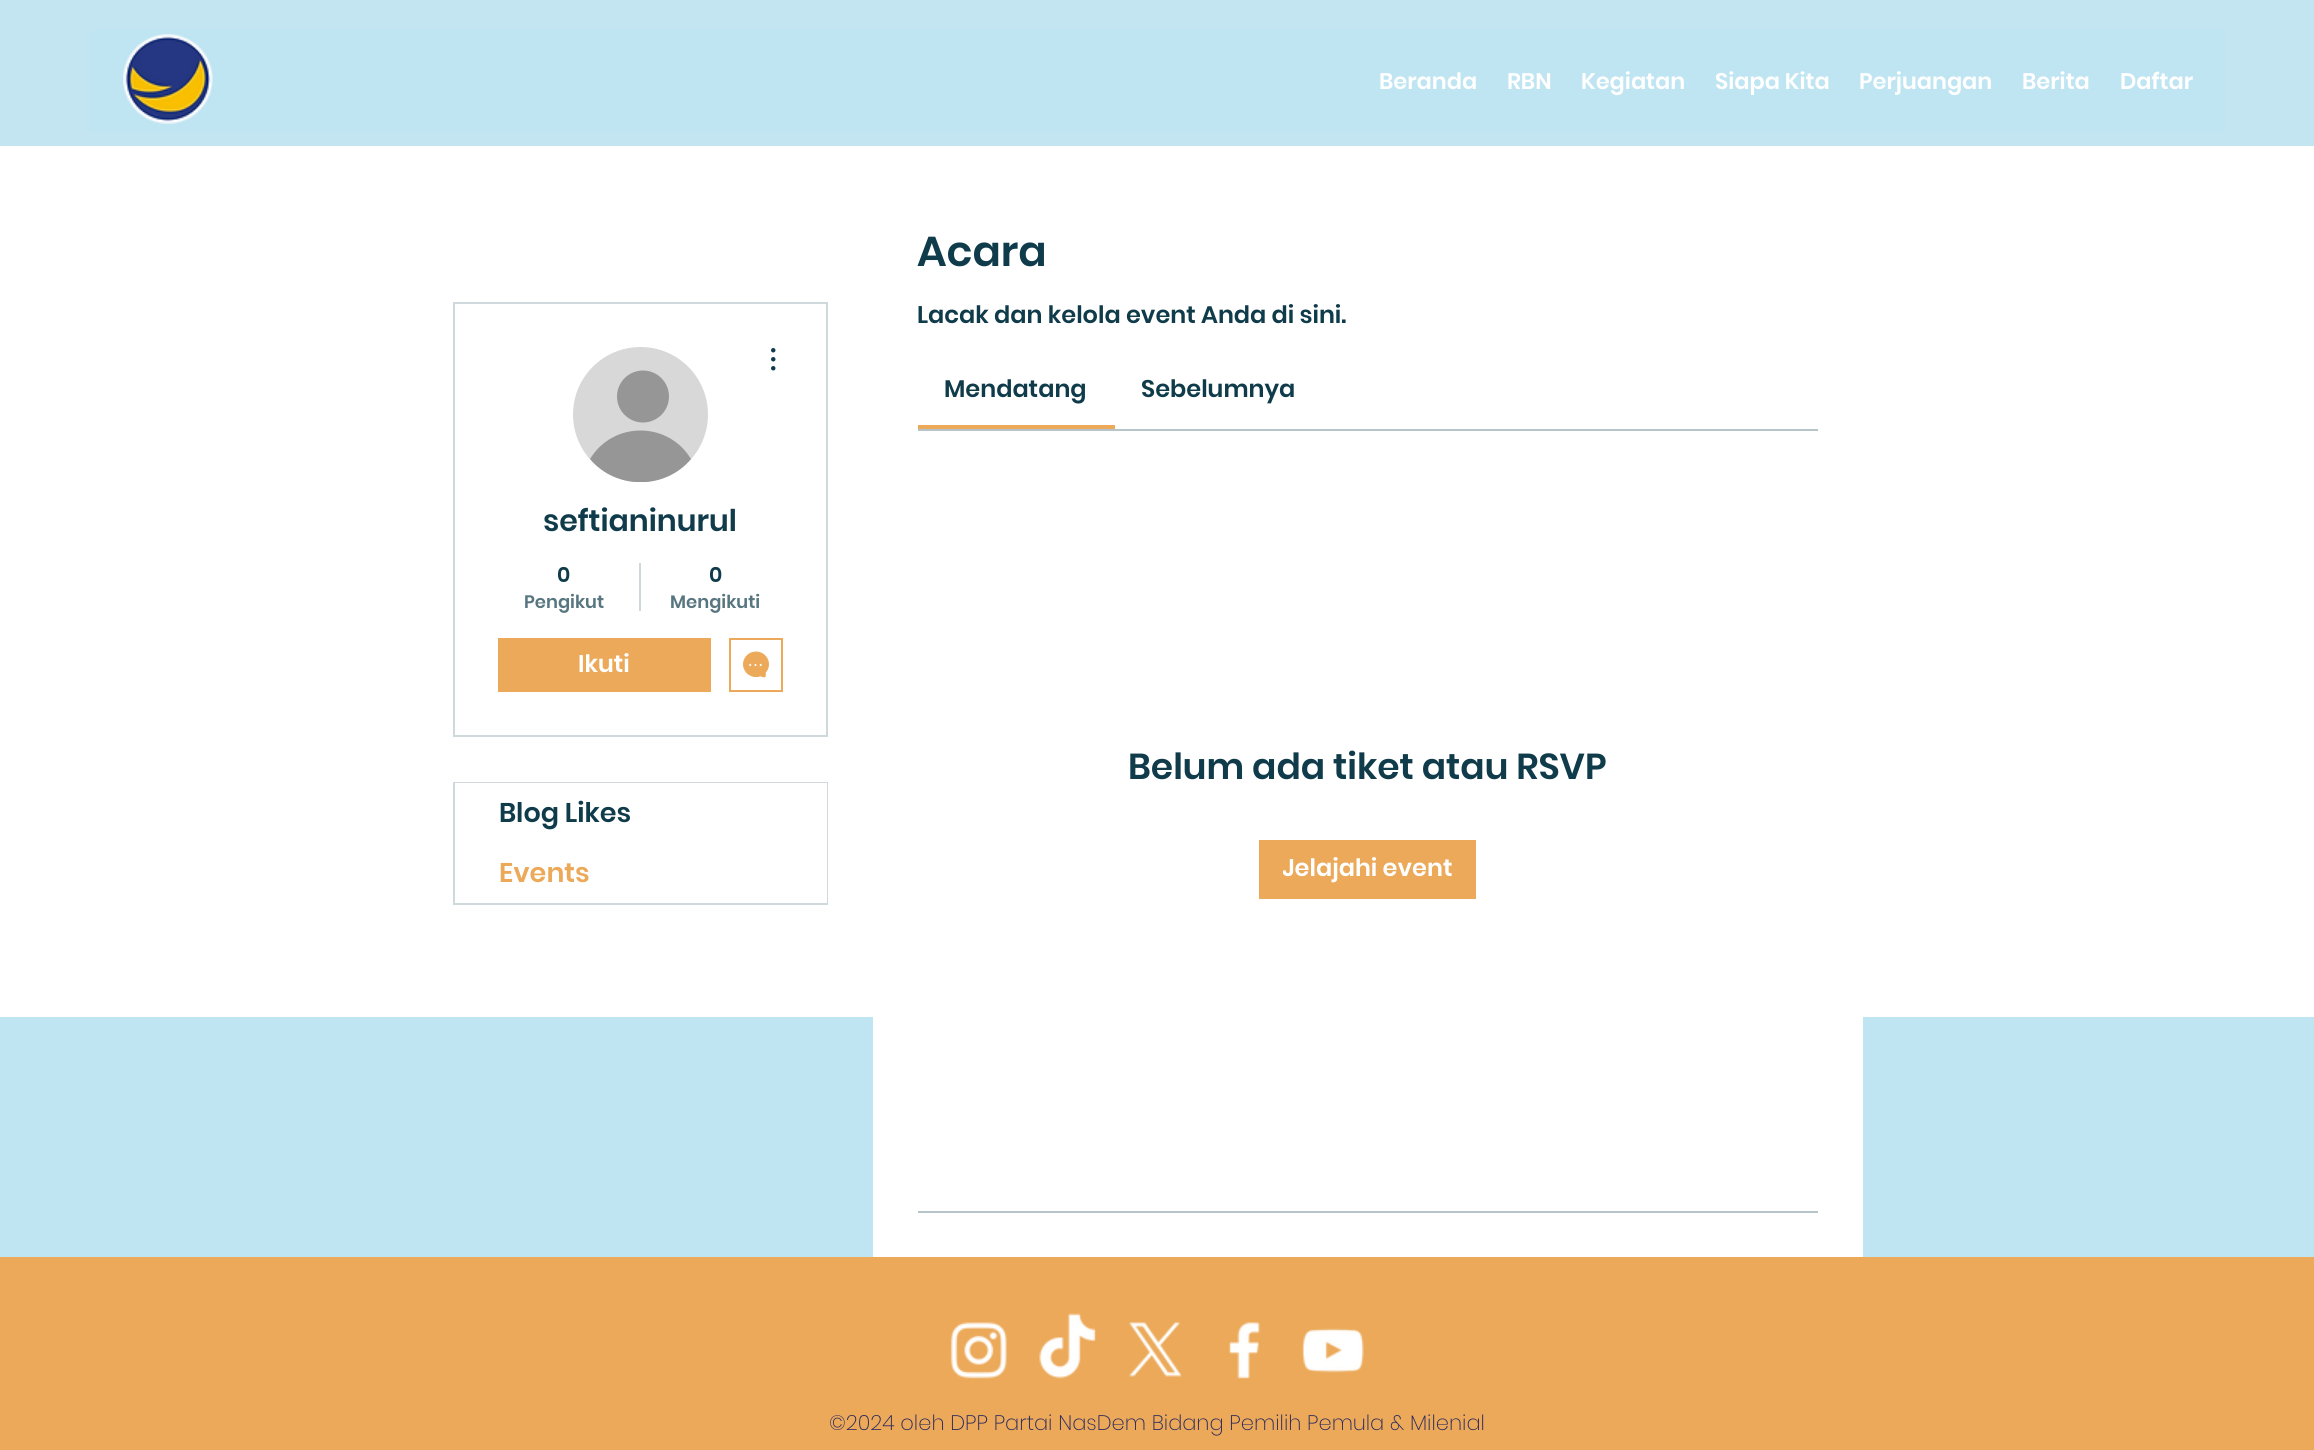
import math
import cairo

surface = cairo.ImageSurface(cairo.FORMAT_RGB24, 2314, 1450)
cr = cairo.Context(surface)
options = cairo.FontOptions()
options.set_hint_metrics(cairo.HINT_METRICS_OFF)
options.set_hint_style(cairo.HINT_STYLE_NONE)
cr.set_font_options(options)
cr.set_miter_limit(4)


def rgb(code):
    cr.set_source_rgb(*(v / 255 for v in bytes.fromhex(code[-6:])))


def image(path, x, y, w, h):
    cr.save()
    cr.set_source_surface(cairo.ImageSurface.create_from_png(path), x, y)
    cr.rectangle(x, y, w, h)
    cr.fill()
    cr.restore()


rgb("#bfe5f2")
cr.paint()
rgb("#c3e4f1")
cr.rectangle(0, 0, 2314, 146)
cr.fill()
rgb("#bfe5f2")
cr.rectangle(90, 30, 2135, 101)
cr.fill()
image("img/1.png", 123, 34, 90, 90)
rgb("#ffffff")
cr.rectangle(0, 146, 2314, 871)
cr.fill()
cr.rectangle(454, 303, 373, 433)
rgb("#cfd8db")
cr.stroke()
rgb("#d8d8d8")
cr.arc(640.5, 414.5, 67.5, 0, 2 * math.pi)
cr.fill()
rgb("#969696")
cr.arc(643, 396.5, 26, 0, 2 * math.pi)
cr.fill()
cr.save()
cr.rectangle(573, 347, 135, 135)
cr.clip()
cr.new_path()
cr.move_to(691, 459)
cr.curve_to(665, 490, 616, 490, 590, 459)
cr.curve_to(613, 421, 668, 421, 691, 459)
cr.close_path()
cr.fill()
cr.restore()
image("img/2.png", 771, 348, 5, 23)
rgb("#cfd8db")
cr.rectangle(639, 563, 2, 48)
cr.fill()
rgb("#eba959")
cr.rectangle(498, 638, 213, 54)
cr.fill()
cr.rectangle(730, 639, 52, 52)
cr.stroke()
image("img/3.png", 743, 651, 26, 27)
cr.rectangle(454, 783, 373, 121)
rgb("#cfd8db")
cr.stroke()
for x, y, w, h, color in [
    (455, 783, 372, 60, "#ffffff"),
    (826, 843, 1, 60, "#ffffff"),
    (873, 1017, 990, 240, "#ffffff"),
    (918, 425, 197, 4, "#eba959"),
    (918, 429, 900, 2, "#b7c4c9"),
    (1259, 840, 217, 59, "#eba959"),
    (918, 1211, 900, 2, "#b7c4c9"),
    (0, 1257, 2314, 193, "#eba959"),
]:
    rgb(color)
    cr.rectangle(x, y, w, h)
    cr.fill()
image("img/4.png", 950, 1322, 57, 57)
image("img/5.png", 1039, 1313, 57, 66)
image("img/6.png", 1129, 1322, 53, 55)
image("img/7.png", 1228, 1322, 33, 57)
image("img/8.png", 1302, 1328, 62, 45)
cr.select_font_face("Poppins SemiBold")
cr.set_font_size(22.5)
rgb("#ffffff")
for x, y, s in [
    (1379, 89, "Beranda"),
    (1507, 89, "RBN"),
    (1581, 89, "Kegiatan"),
    (1715, 89, "Siapa Kita"),
    (1859, 89, "Perjuangan"),
    (2022, 89, "Berita"),
    (2120, 89, "Daftar"),
]:
    cr.move_to(x, y)
    cr.show_text(s)
cr.set_font_size(30)
rgb("#0f3b4a")
cr.move_to(543, 531)
cr.show_text("seftianinurul")
cr.set_font_size(21)
cr.move_to(557, 582)
cr.show_text("0")
cr.set_font_size(18)
rgb("#577680")
cr.move_to(524, 608)
cr.show_text("Pengikut")
cr.set_font_size(21)
rgb("#0f3b4a")
cr.move_to(709, 582)
cr.show_text("0")
cr.set_font_size(18)
rgb("#577680")
cr.move_to(670, 608)
cr.show_text("Mengikuti")
cr.set_font_size(24)
rgb("#ffffff")
cr.move_to(578, 672)
cr.show_text("Ikuti")
cr.set_font_size(27)
rgb("#0f3b4a")
cr.move_to(499, 822)
cr.show_text("Blog Likes")
rgb("#eba959")
cr.move_to(499, 882)
cr.show_text("Events")
cr.set_font_size(42)
rgb("#0f3b4a")
cr.move_to(917, 266)
cr.show_text("Acara")
cr.set_font_size(24)
for x, y, s in [
    (917, 323, "Lacak dan kelola event Anda di sini."),
    (944, 397, "Mendatang"),
    (1141, 397, "Sebelumnya"),
]:
    cr.move_to(x, y)
    cr.show_text(s)
cr.set_font_size(36)
cr.move_to(1128, 779)
cr.show_text("Belum ada tiket atau RSVP")
cr.save()
cr.rectangle(1283, 852, 169, 35)
cr.clip()
cr.set_font_size(24)
rgb("#ffffff")
cr.move_to(1282, 876)
cr.show_text("Jelajahi event")
cr.restore()
cr.select_font_face("Poppins ExtraLight")
cr.set_font_size(21)
rgb("#29285f")
cr.move_to(829, 1430)
cr.show_text("©2024 oleh DPP Partai NasDem Bidang Pemilih Pemula & Milenial")
surface.write_to_png("page.png")
